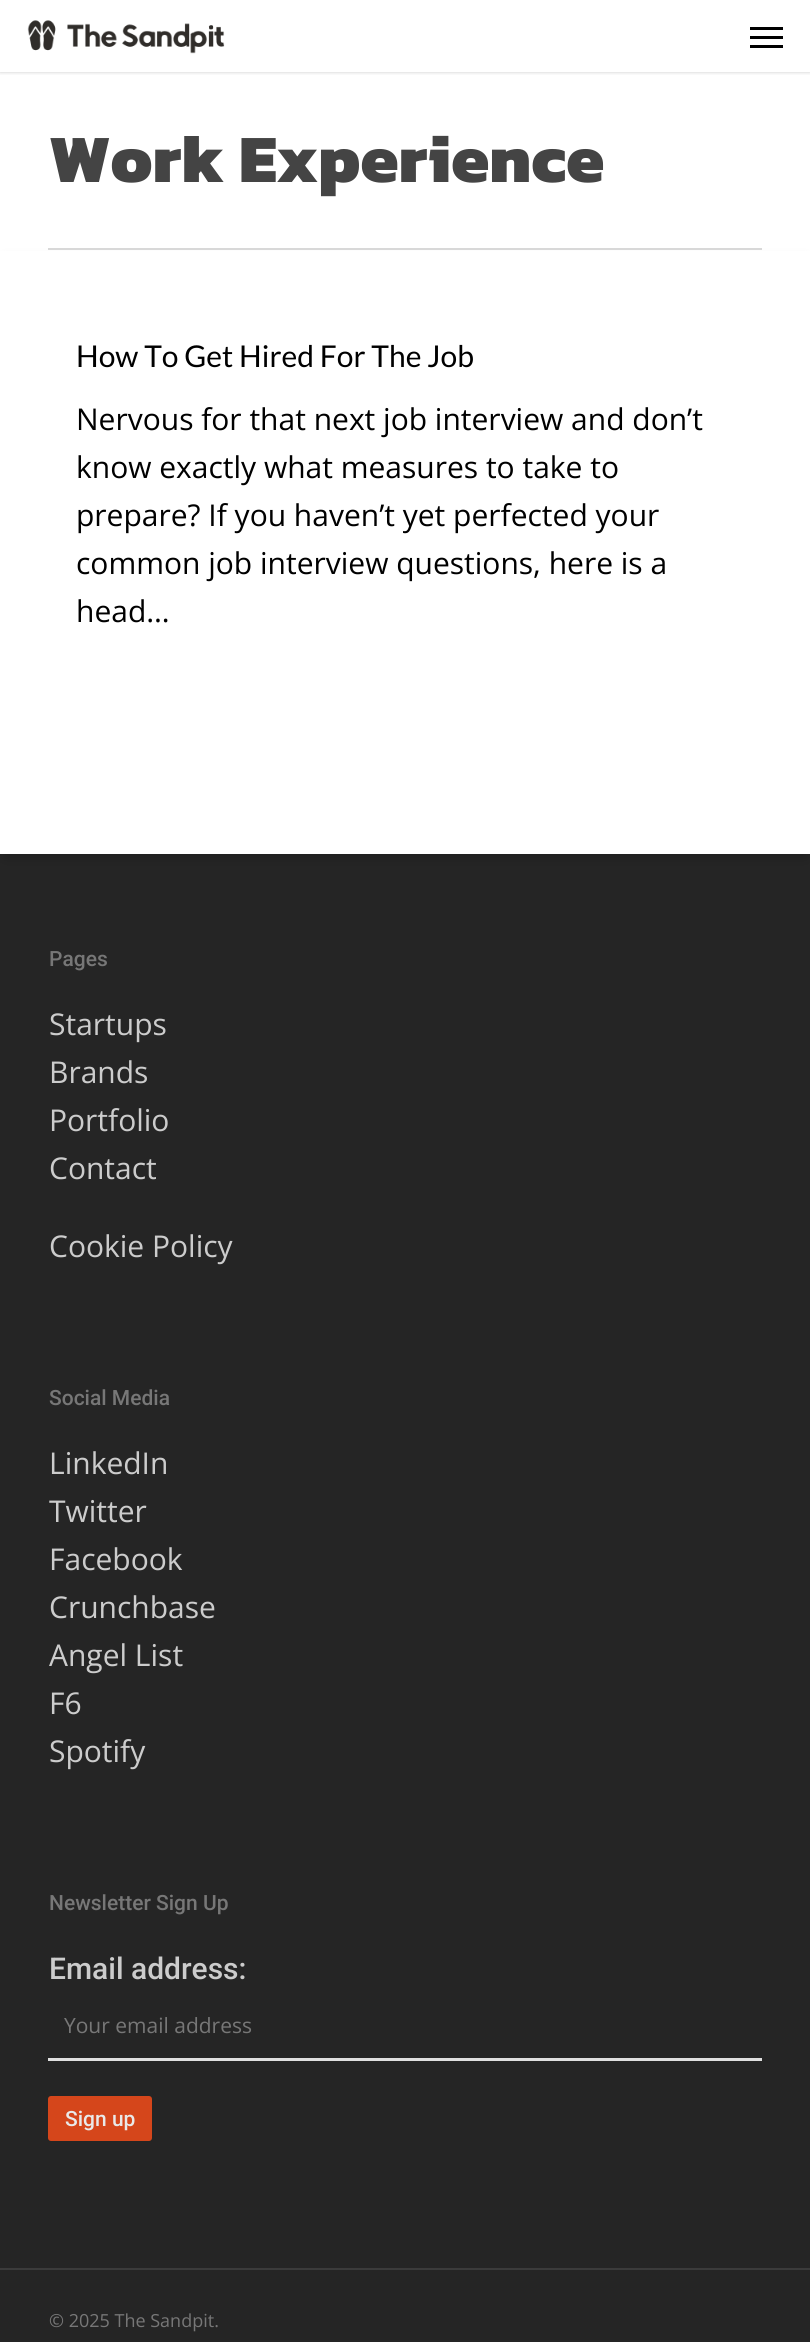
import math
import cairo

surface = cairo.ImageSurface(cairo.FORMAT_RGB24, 810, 2342)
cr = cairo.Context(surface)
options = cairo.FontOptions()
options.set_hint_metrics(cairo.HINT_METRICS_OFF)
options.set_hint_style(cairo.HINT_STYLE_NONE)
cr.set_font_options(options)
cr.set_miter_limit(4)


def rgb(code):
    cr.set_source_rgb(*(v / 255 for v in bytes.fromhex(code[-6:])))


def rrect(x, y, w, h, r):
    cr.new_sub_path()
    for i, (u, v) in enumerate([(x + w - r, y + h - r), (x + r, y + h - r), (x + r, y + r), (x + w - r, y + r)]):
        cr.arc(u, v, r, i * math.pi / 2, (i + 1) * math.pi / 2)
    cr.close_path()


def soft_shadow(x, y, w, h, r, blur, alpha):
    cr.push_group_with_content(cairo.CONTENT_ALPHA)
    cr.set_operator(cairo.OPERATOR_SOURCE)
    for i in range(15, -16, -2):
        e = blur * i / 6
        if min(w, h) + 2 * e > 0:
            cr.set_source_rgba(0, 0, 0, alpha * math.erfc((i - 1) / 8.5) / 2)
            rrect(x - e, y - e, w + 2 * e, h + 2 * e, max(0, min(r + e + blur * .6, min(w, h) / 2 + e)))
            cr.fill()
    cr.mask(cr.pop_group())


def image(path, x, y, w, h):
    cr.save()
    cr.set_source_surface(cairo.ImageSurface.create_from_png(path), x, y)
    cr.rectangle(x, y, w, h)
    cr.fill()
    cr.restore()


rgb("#ffffff")
cr.paint()
cr.save()
cr.rectangle(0, 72, 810, 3)
cr.clip()
rgb("#000000")
soft_shadow(0, 0, 810, 72, 0, 2, 0.22)
cr.restore()
image("img/1.png", 27, 20, 198, 34)
for x, y, w, h, color in [
    (750, 27, 33, 3, "#000000"),
    (750, 45, 33, 3, "#000000"),
    (750, 36, 33, 3, "#000000"),
    (0, 854, 810, 1488, "#252525"),
]:
    rgb(color)
    cr.rectangle(x, y, w, h)
    cr.fill()
rgb("#000000")
soft_shadow(5, 261, 801, 596, 0, 6, 0.2)
for x, y, w, h, color in [
    (48, 248, 714, 2, "#d8d8d8"),
    (0, 251, 810, 603, "#ffffff"),
    (48, 2058, 714, 3, "#e0e0e0"),
]:
    rgb(color)
    cr.rectangle(x, y, w, h)
    cr.fill()
rgb("#d5461b")
rrect(48, 2096, 104, 45, 3)
cr.fill()
rgb("#3b3b3b")
cr.rectangle(0, 2268, 810, 2)
cr.fill()
cr.select_font_face("Kanit ExtraBold")
cr.set_font_size(68.25)
rgb("#444444")
cr.move_to(49, 182)
cr.show_text("Work Experience")
cr.select_font_face("Lato")
cr.set_font_size(30)
rgb("#000000")
cr.move_to(76, 367)
cr.show_text("How To Get Hired For The Job")
cr.select_font_face("Open Sans")
for x, y, s in [
    (76, 430, "Nervous for that next job interview and don’t"),
    (76, 478, "know exactly what measures to take to"),
    (76, 526, "prepare? If you haven’t yet perfected your"),
    (76, 574, "common job interview questions, here is a"),
    (76, 622, "head…"),
]:
    cr.move_to(x, y)
    cr.show_text(s)
cr.select_font_face("Roboto Medium")
cr.set_font_size(21)
rgb("#777777")
cr.move_to(49, 966)
cr.show_text("Pages")
cr.select_font_face("Open Sans")
cr.set_font_size(30)
rgb("#cccccc")
for x, y, s in [
    (49, 1035, "Startups"),
    (49, 1083, "Brands"),
    (49, 1131, "Portfolio"),
    (49, 1179, "Contact"),
    (49, 1257, "Cookie Policy"),
]:
    cr.move_to(x, y)
    cr.show_text(s)
cr.select_font_face("Roboto Medium")
cr.set_font_size(21)
rgb("#777777")
cr.move_to(49, 1405)
cr.show_text("Social Media")
cr.select_font_face("Open Sans")
cr.set_font_size(30)
rgb("#cccccc")
for x, y, s in [
    (49, 1474, "LinkedIn"),
    (49, 1522, "Twitter"),
    (49, 1570, "Facebook"),
    (49, 1618, "Crunchbase"),
    (49, 1666, "Angel List"),
    (49, 1714, "F6"),
    (49, 1762, "Spotify"),
]:
    cr.move_to(x, y)
    cr.show_text(s)
cr.select_font_face("Roboto Medium")
cr.set_font_size(21)
rgb("#777777")
cr.move_to(49, 1910)
cr.show_text("Newsletter Sign Up")
cr.set_font_size(30)
rgb("#cccccc")
cr.move_to(49, 1979)
cr.show_text("Email address:")
cr.select_font_face("Open Sans")
cr.set_font_size(21)
rgb("#777777")
cr.move_to(64, 2033)
cr.show_text("Your email address")
cr.select_font_face("Roboto Medium")
rgb("#e9e9e9")
cr.move_to(65, 2126)
cr.show_text("Sign up")
cr.select_font_face("Open Sans")
cr.set_font_size(18)
rgb("#777777")
cr.move_to(49, 2327)
cr.show_text("© 2025 The Sandpit.")
surface.write_to_png("page.png")
